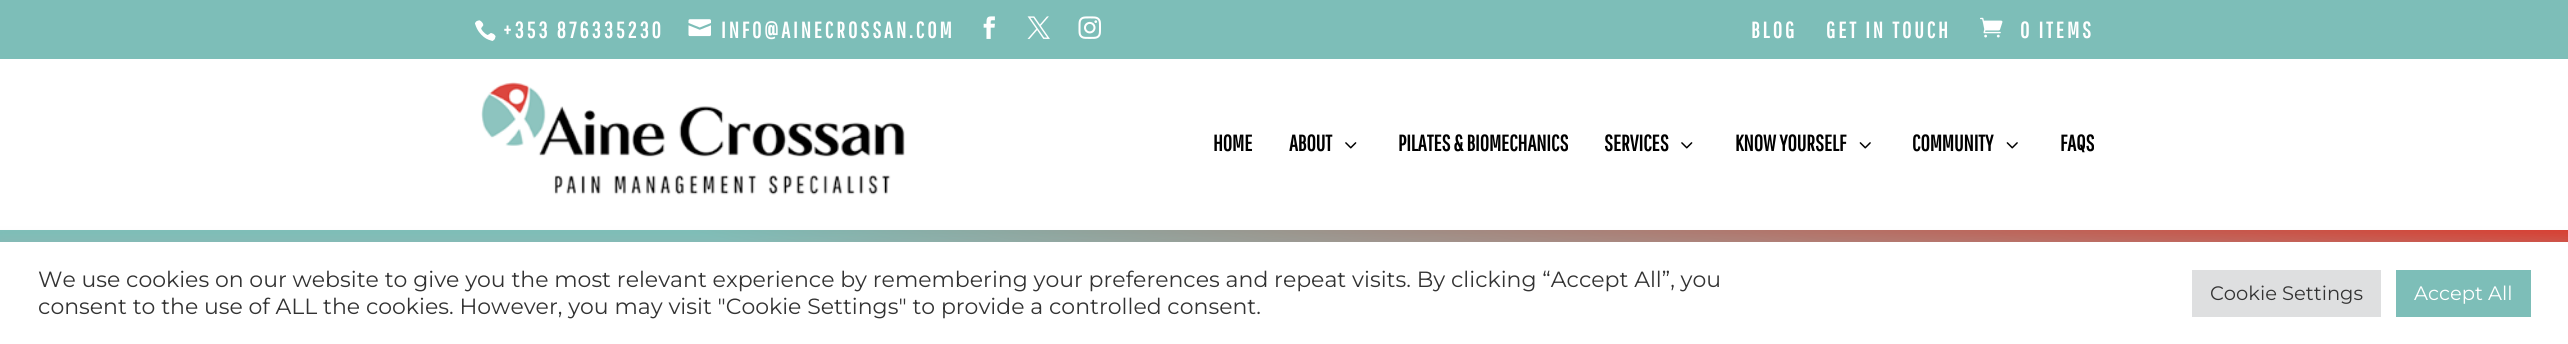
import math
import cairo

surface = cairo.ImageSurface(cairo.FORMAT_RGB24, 2568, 344)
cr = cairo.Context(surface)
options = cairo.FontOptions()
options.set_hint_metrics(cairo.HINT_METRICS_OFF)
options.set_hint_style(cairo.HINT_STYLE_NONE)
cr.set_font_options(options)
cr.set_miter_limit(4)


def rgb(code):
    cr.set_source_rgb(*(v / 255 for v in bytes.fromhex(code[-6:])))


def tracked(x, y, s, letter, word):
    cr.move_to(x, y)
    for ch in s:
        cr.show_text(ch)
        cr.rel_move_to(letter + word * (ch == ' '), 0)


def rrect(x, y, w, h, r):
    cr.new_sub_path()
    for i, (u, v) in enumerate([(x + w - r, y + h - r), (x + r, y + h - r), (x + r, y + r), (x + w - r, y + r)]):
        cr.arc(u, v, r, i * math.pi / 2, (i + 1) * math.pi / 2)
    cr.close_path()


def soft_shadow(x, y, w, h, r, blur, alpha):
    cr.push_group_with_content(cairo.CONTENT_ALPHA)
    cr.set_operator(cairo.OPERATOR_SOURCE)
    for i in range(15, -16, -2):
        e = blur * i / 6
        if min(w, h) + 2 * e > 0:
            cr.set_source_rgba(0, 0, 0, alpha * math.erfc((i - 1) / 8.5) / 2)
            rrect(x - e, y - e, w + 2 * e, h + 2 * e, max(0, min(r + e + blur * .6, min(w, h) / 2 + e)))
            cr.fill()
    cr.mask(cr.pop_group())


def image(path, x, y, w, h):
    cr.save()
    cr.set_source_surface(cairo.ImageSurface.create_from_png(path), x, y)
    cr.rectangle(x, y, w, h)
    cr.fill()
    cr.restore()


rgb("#ffffff")
cr.paint()
rgb("#7dbeb8")
cr.rectangle(0, 0, 2568, 59)
cr.fill()
image("img/1.png", 475, 20, 21, 21)
image("img/2.png", 688, 19, 23, 18)
image("img/3.png", 983, 16, 12, 23)
image("img/4.png", 1027, 16, 23, 23)
image("img/5.png", 1078, 16, 23, 23)
image("img/6.png", 1980, 17, 23, 21)
image("img/7.png", 481, 82, 424, 113)
image("img/8.png", 1345, 142, 12, 7)
image("img/8.png", 1681, 142, 12, 7)
image("img/9.png", 1859, 142, 12, 7)
image("img/9.png", 2006, 142, 12, 7)
gradient = cairo.LinearGradient(1184, 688, 1384, -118)
gradient.add_color_stop_rgba(0.39, 0.49, 0.745, 0.722, 1)
gradient.add_color_stop_rgba(1, 0.89, 0.184, 0.129, 1)
cr.set_source(gradient)
cr.rectangle(0, 230, 2568, 12)
cr.fill()
rgb("#acabab")
soft_shadow(0, 240, 2568, 104, 0, 7.5, 0.3)
for x, y, w, h, color in [
    (0, 242, 2568, 102, "#ffffff"),
    (2192, 270, 189, 47, "#dedfe0"),
    (2396, 270, 135, 47, "#7dbeb8"),
]:
    rgb(color)
    cr.rectangle(x, y, w, h)
    cr.fill()
cr.select_font_face("Pathway Gothic One", cairo.FONT_SLANT_NORMAL, cairo.FONT_WEIGHT_BOLD)
cr.set_font_size(22.5)
rgb("#ffffff")
for x, y, s in [
    (503, 38, "+353 876335230"),
    (721, 38, "INFO@AINECROSSAN.COM"),
    (1751, 38, "BLOG"),
    (1826, 38, "GET IN TOUCH"),
    (2020, 38, "0 ITEMS"),
]:
    tracked(x, y, s, 3, 0)
rgb("#000000")
for x, y, s in [
    (1213, 151, "HOME"),
    (1289, 151, "ABOUT"),
    (1398, 151, "PILATES & BIOMECHANICS"),
    (1604, 151, "SERVICES"),
    (1735, 151, "KNOW YOURSELF"),
    (1912, 151, "COMMUNITY"),
    (2060, 151, "FAQS"),
]:
    cr.move_to(x, y)
    cr.show_text(s)
cr.select_font_face("Montserrat Thin")
cr.set_font_size(22)
rgb("#333333")
cr.move_to(38, 287)
cr.show_text("We use cookies on our website to give you the most relevant experience by remembering your preferences and repeat visits. By clicking “Accept All”, you")
cr.move_to(38, 314)
cr.show_text("consent to the use of ALL the cookies. However, you may visit \"Cookie Settings\" to provide a controlled consent.")
cr.set_font_size(19.5)
cr.move_to(2210, 300)
cr.show_text("Cookie Settings")
rgb("#ffffff")
cr.move_to(2414, 300)
cr.show_text("Accept All")
surface.write_to_png("page.png")
